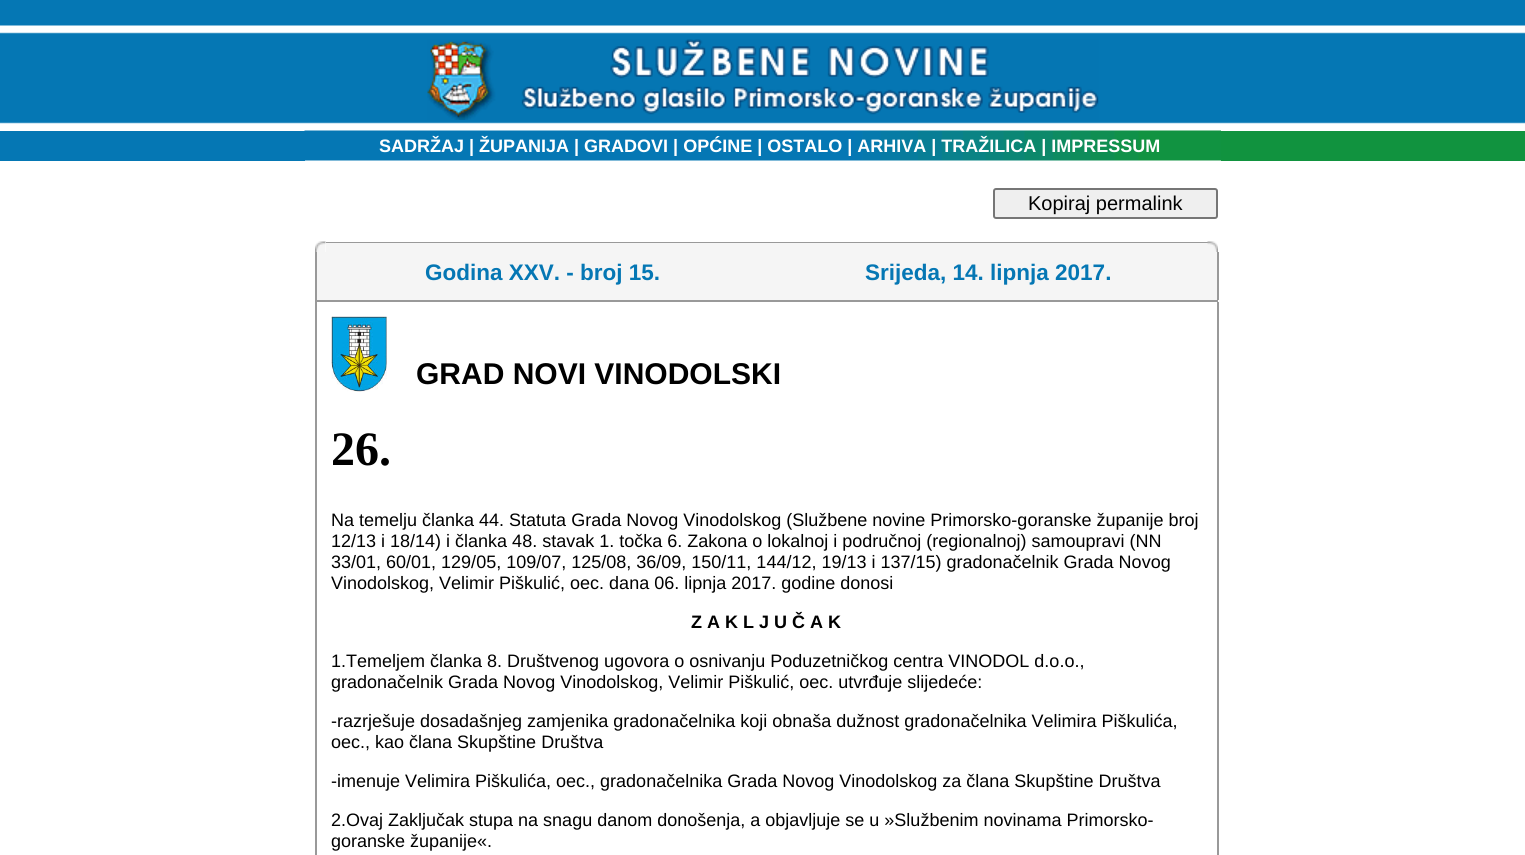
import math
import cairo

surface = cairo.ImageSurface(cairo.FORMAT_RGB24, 1525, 855)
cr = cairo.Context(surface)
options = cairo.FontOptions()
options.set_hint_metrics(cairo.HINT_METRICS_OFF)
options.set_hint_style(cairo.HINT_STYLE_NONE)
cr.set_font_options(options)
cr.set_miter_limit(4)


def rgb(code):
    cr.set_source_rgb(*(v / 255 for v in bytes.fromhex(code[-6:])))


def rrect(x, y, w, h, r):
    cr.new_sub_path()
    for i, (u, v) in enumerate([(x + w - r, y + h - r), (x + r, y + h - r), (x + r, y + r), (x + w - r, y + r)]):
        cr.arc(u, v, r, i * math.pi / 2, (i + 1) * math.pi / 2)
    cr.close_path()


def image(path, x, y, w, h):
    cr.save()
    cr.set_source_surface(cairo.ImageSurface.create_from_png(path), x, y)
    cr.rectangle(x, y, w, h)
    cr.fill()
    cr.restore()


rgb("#ffffff")
cr.paint()
image("img/1.png", 0, 0, 1525, 124)
image("img/2.png", 427, 39, 672, 81)
rgb("#0577b4")
cr.rectangle(0, 131, 305, 30)
cr.fill()
image("img/3.png", 304, 130, 917, 31)
rgb("#11933f")
cr.rectangle(1221, 131, 304, 30)
cr.fill()
rgb("#efefef")
rrect(994, 189, 223, 29, 2)
cr.fill_preserve()
rgb("#767676")
cr.stroke()
image("img/4.png", 315, 241, 11, 11)
rgb("#999999")
cr.rectangle(326, 242, 882, 1)
cr.fill()
rgb("#f5f5f5")
cr.rectangle(326, 243, 882, 9)
cr.fill()
image("img/5.png", 1207, 241, 11, 11)
for x, y, w, h, color in [
    (315, 252, 2, 48, "#999999"),
    (317, 252, 900, 48, "#f5f5f5"),
    (1217, 252, 2, 48, "#999999"),
    (315, 300, 903, 2, "#999999"),
    (315, 302, 2, 553, "#999999"),
]:
    rgb(color)
    cr.rectangle(x, y, w, h)
    cr.fill()
image("img/6.png", 331, 316, 56, 76)
cr.rectangle(1217, 302, 2, 553)
cr.fill()
cr.select_font_face("Liberation Sans", cairo.FONT_SLANT_NORMAL, cairo.FONT_WEIGHT_BOLD)
cr.set_font_size(18)
rgb("#ffffff")
cr.move_to(379, 152)
cr.show_text("SADRŽAJ | ŽUPANIJA | GRADOVI | OPĆINE | OSTALO | ARHIVA | TRAŽILICA | IMPRESSUM")
cr.select_font_face("Liberation Sans")
cr.set_font_size(20)
rgb("#000000")
cr.move_to(1028, 210)
cr.show_text("Kopiraj permalink")
cr.select_font_face("Liberation Sans", cairo.FONT_SLANT_NORMAL, cairo.FONT_WEIGHT_BOLD)
cr.set_font_size(22.5)
rgb("#0577b4")
cr.move_to(425, 280)
cr.show_text("Godina XXV. - broj 15.")
cr.move_to(865, 280)
cr.show_text("Srijeda, 14. lipnja 2017.")
cr.set_font_size(30)
rgb("#000000")
cr.move_to(416, 384)
cr.show_text("GRAD NOVI VINODOLSKI")
cr.select_font_face("Liberation Serif", cairo.FONT_SLANT_NORMAL, cairo.FONT_WEIGHT_BOLD)
cr.set_font_size(48)
cr.move_to(331, 465)
cr.show_text("26.")
cr.select_font_face("Liberation Sans")
cr.set_font_size(18)
for x, y, s in [
    (331, 526, "Na temelju članka 44. Statuta Grada Novog Vinodolskog (Službene novine Primorsko-goranske županije broj"),
    (331, 547, "12/13 i 18/14) i članka 48. stavak 1. točka 6. Zakona o lokalnoj i područnoj (regionalnoj) samoupravi (NN"),
    (331, 568, "33/01, 60/01, 129/05, 109/07, 125/08, 36/09, 150/11, 144/12, 19/13 i 137/15) gradonačelnik Grada Novog"),
    (331, 589, "Vinodolskog, Velimir Piškulić, oec. dana 06. lipnja 2017. godine donosi"),
]:
    cr.move_to(x, y)
    cr.show_text(s)
cr.select_font_face("Liberation Sans", cairo.FONT_SLANT_NORMAL, cairo.FONT_WEIGHT_BOLD)
cr.move_to(691, 628)
cr.show_text("Z A K L J U Č A K")
cr.select_font_face("Liberation Sans")
for x, y, s in [
    (331, 667, "1.Temeljem članka 8. Društvenog ugovora o osnivanju Poduzetničkog centra VINODOL d.o.o.,"),
    (331, 688, "gradonačelnik Grada Novog Vinodolskog, Velimir Piškulić, oec. utvrđuje slijedeće:"),
    (331, 727, "-razrješuje dosadašnjeg zamjenika gradonačelnika koji obnaša dužnost gradonačelnika Velimira Piškulića,"),
    (331, 748, "oec., kao člana Skupštine Društva"),
    (331, 787, "-imenuje Velimira Piškulića, oec., gradonačelnika Grada Novog Vinodolskog za člana Skupštine Društva"),
    (331, 826, "2.Ovaj Zaključak stupa na snagu danom donošenja, a objavljuje se u »Službenim novinama Primorsko-"),
    (331, 847, "goranske županije«."),
]:
    cr.move_to(x, y)
    cr.show_text(s)
surface.write_to_png("page.png")
